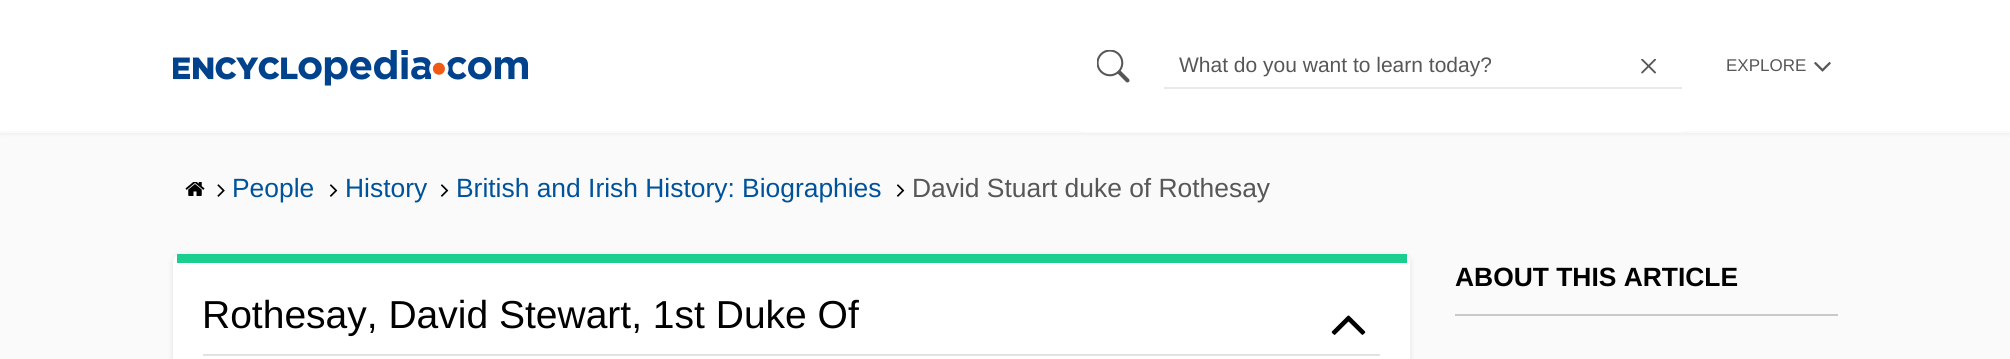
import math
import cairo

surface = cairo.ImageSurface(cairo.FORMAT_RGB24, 2010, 359)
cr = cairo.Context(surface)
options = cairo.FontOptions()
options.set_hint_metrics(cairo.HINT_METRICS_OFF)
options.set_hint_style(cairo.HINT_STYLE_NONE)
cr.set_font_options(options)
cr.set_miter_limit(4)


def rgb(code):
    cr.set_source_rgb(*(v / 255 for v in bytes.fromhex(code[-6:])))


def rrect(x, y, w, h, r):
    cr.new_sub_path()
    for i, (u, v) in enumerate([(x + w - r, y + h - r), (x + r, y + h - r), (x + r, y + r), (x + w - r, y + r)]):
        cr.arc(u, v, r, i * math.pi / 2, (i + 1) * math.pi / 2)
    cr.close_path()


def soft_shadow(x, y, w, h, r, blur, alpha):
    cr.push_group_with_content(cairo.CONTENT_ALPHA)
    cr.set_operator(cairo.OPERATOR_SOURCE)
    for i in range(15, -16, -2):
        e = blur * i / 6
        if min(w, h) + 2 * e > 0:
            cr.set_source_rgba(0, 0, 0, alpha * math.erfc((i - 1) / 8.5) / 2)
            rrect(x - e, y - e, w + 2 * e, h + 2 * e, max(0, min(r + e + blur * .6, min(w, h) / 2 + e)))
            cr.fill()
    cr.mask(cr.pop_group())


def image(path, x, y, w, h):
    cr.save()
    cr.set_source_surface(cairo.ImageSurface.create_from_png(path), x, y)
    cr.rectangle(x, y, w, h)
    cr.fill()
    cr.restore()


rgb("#fafafa")
cr.paint()
rgb("#000000")
soft_shadow(0, 0, 2010, 132, 0, 3, 0.1)
rgb("#ffffff")
cr.rectangle(0, 0, 2010, 131)
cr.fill()
rgb("#fafafa")
cr.rectangle(0, 131, 2010, 2)
cr.fill()
image("img/1.png", 173, 50, 355, 36)
rgb("#ffffff")
cr.rectangle(1082, 131, 600, 1)
cr.fill()
image("img/2.png", 1097, 50, 33, 33)
rgb("#e9e9e9")
cr.rectangle(1164, 87, 518, 2)
cr.fill()
image("img/3.png", 1641, 59, 15, 15)
image("img/4.png", 1814, 62, 17, 10)
image("img/5.png", 185, 182, 20, 14)
image("img/6.png", 217, 184, 8, 13)
image("img/7.png", 329, 184, 9, 13)
image("img/7.png", 440, 184, 9, 13)
image("img/7.png", 896, 184, 9, 13)
rgb("#c9c9c9")
cr.rectangle(1455, 314, 383, 2)
cr.fill()
rgb("#000000")
soft_shadow(173, 255, 1237, 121, 8, 3, 0.1)
rgb("#ffffff")
rrect(173, 254, 1237, 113, 8)
cr.fill()
rgb("#1ace90")
cr.rectangle(177, 254, 1230, 9)
cr.fill()
image("img/8.png", 1331, 315, 35, 20)
rgb("#e2e2e2")
cr.rectangle(203, 354, 1177, 2)
cr.fill()
cr.select_font_face("Liberation Sans")
cr.set_font_size(21)
rgb("#575757")
cr.move_to(1179, 72)
cr.show_text("What do you want to learn today?")
cr.set_font_size(17)
cr.move_to(1726, 71)
cr.show_text("EXPLORE")
cr.set_font_size(26.4)
rgb("#00529b")
for x, y, s in [
    (232, 197, "People"),
    (345, 197, "History"),
    (456, 197, "British and Irish History: Biographies"),
]:
    cr.move_to(x, y)
    cr.show_text(s)
rgb("#575757")
cr.move_to(912, 197)
cr.show_text("David Stuart duke of Rothesay")
cr.select_font_face("Liberation Sans", cairo.FONT_SLANT_NORMAL, cairo.FONT_WEIGHT_BOLD)
rgb("#000000")
cr.move_to(1455, 286)
cr.show_text("ABOUT THIS ARTICLE")
cr.select_font_face("Liberation Sans")
cr.set_font_size(39)
cr.move_to(202, 328)
cr.show_text("Rothesay, David Stewart, 1st Duke Of")
surface.write_to_png("page.png")
